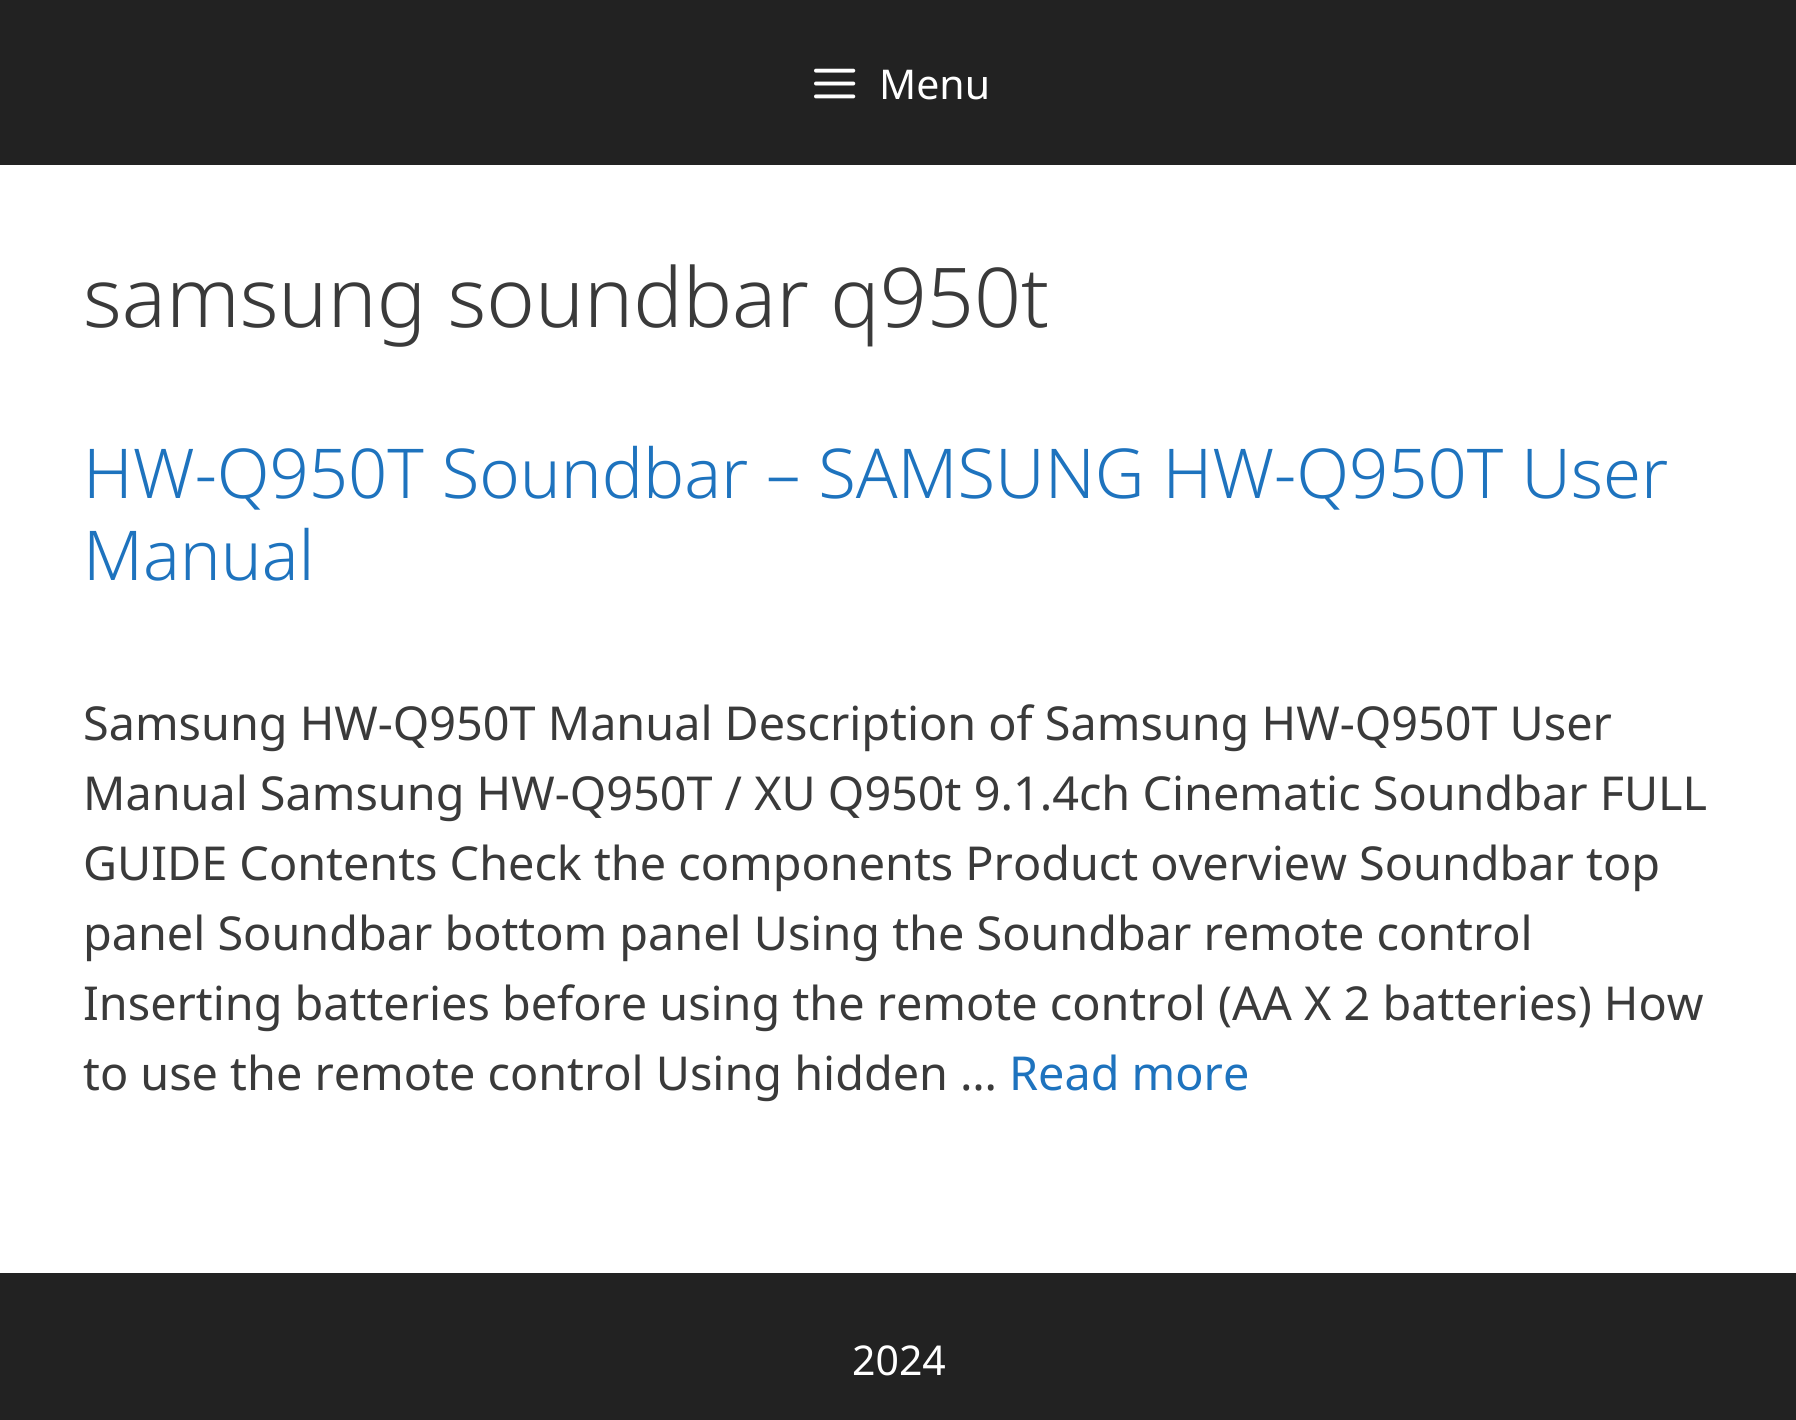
import math
import cairo

surface = cairo.ImageSurface(cairo.FORMAT_RGB24, 1796, 1420)
cr = cairo.Context(surface)
options = cairo.FontOptions()
options.set_hint_metrics(cairo.HINT_METRICS_OFF)
options.set_hint_style(cairo.HINT_STYLE_NONE)
cr.set_font_options(options)
cr.set_miter_limit(4)


def rgb(code):
    cr.set_source_rgb(*(v / 255 for v in bytes.fromhex(code[-6:])))


def image(path, x, y, w, h):
    cr.save()
    cr.set_source_surface(cairo.ImageSurface.create_from_png(path), x, y)
    cr.rectangle(x, y, w, h)
    cr.fill()
    cr.restore()


rgb("#222222")
cr.paint()
image("img/1.png", 814, 68, 42, 31)
rgb("#ffffff")
cr.rectangle(0, 165, 1796, 1108)
cr.fill()
cr.select_font_face("Noto Sans")
cr.set_font_size(41)
cr.move_to(879, 99)
cr.show_text("Menu")
cr.select_font_face("Noto Sans Light")
cr.set_font_size(82.5)
rgb("#3a3a3a")
cr.move_to(83, 327)
cr.show_text("samsung soundbar q950t")
cr.set_font_size(68.75)
rgb("#1e73be")
cr.move_to(83, 498)
cr.show_text("HW-Q950T Soundbar – SAMSUNG HW-Q950T User")
cr.move_to(83, 580)
cr.show_text("Manual")
cr.select_font_face("Noto Sans")
cr.set_font_size(46.75)
rgb("#3a3a3a")
for x, y, s in [
    (83, 740, "Samsung HW-Q950T Manual Description of Samsung HW-Q950T User"),
    (83, 810, "Manual Samsung HW-Q950T / XU Q950t 9.1.4ch Cinematic Soundbar FULL"),
    (83, 880, "GUIDE Contents Check the components Product overview Soundbar top"),
    (83, 950, "panel Soundbar bottom panel Using the Soundbar remote control"),
    (83, 1020, "Inserting batteries before using the remote control (AA X 2 batteries) How"),
    (83, 1090, "to use the remote control Using hidden …"),
]:
    cr.move_to(x, y)
    cr.show_text(s)
rgb("#1e73be")
cr.move_to(1009, 1090)
cr.show_text("Read more")
cr.set_font_size(41)
rgb("#ffffff")
cr.move_to(852, 1375)
cr.show_text("2024")
surface.write_to_png("page.png")
